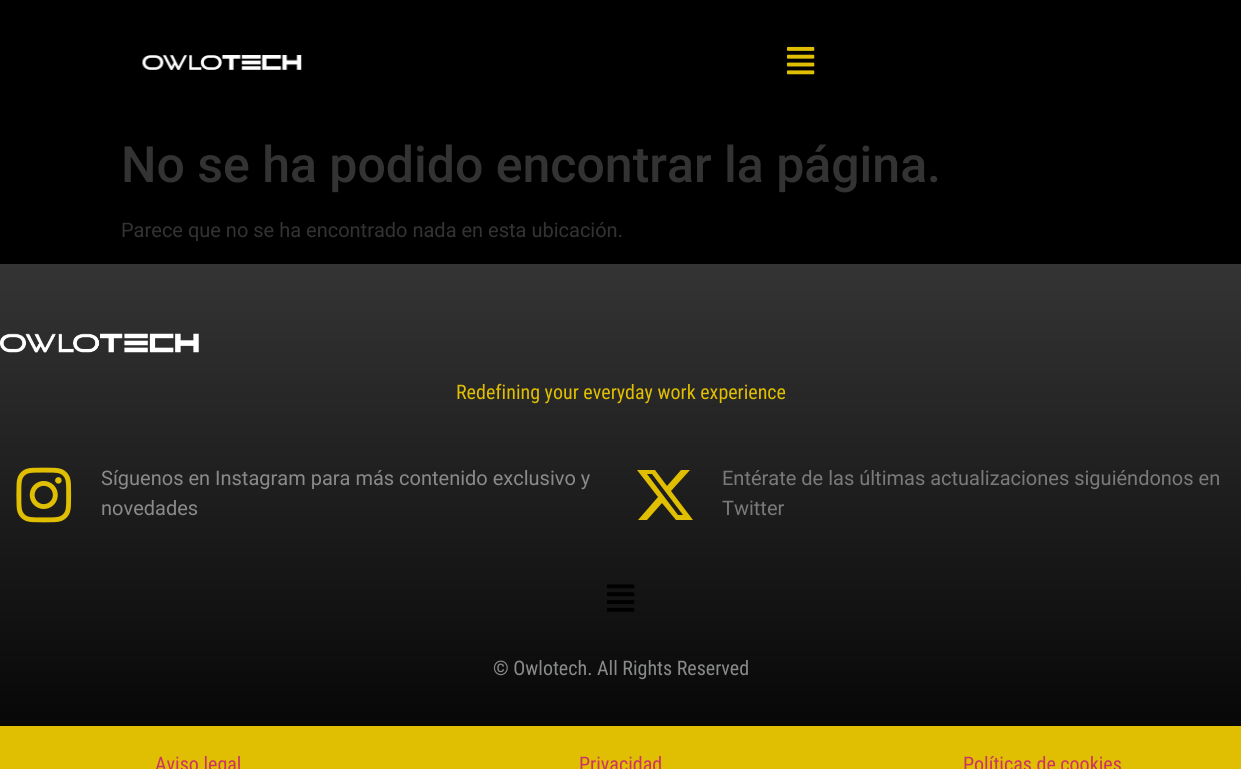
import math
import cairo

surface = cairo.ImageSurface(cairo.FORMAT_RGB24, 1241, 769)
cr = cairo.Context(surface)
options = cairo.FontOptions()
options.set_hint_metrics(cairo.HINT_METRICS_OFF)
options.set_hint_style(cairo.HINT_STYLE_NONE)
cr.set_font_options(options)
cr.set_miter_limit(4)


def rgb(code):
    cr.set_source_rgb(*(v / 255 for v in bytes.fromhex(code[-6:])))


def image(path, x, y, w, h):
    cr.save()
    cr.set_source_surface(cairo.ImageSurface.create_from_png(path), x, y)
    cr.rectangle(x, y, w, h)
    cr.fill()
    cr.restore()


rgb("#000000")
cr.paint()
image("img/1.png", 142, 55, 160, 15)
image("img/2.png", 786, 46, 29, 29)
gradient = cairo.LinearGradient(621, 264, 621, 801)
gradient.add_color_stop_rgba(0, 0.208, 0.204, 0.204, 1)
gradient.add_color_stop_rgba(1, 0, 0, 0, 1)
cr.set_source(gradient)
cr.rectangle(0, 264, 1241, 462)
cr.fill()
image("img/3.png", 0, 333, 199, 20)
image("img/4.png", 16, 467, 56, 56)
rgb("#e0be01")
cr.new_path()
cr.move_to(681, 470)
cr.line_to(690, 470)
cr.line_to(671, 491)
cr.line_to(693, 520)
cr.line_to(676, 520)
cr.line_to(662, 503)
cr.line_to(647, 520)
cr.line_to(638, 520)
cr.line_to(658, 497)
cr.line_to(637, 470)
cr.line_to(655, 470)
cr.line_to(667, 486)
cr.close_path()
cr.move_to(678, 515)
cr.line_to(683, 515)
cr.line_to(652, 474)
cr.line_to(647, 474)
cr.close_path()
cr.fill()
image("img/5.png", 607, 584, 28, 28)
cr.rectangle(0, 726, 1241, 43)
cr.fill()
cr.select_font_face("Roboto Medium")
cr.set_font_size(50)
rgb("#333333")
cr.move_to(121, 182)
cr.show_text("No se ha podido encontrar la página.")
cr.select_font_face("Roboto")
cr.set_font_size(20)
cr.move_to(121, 237)
cr.show_text("Parece que no se ha encontrado nada en esta ubicación.")
cr.select_font_face("Roboto Condensed")
rgb("#e0be01")
cr.move_to(456, 399)
cr.show_text("Redefining your everyday work experience")
cr.select_font_face("Roboto")
rgb("#898a8b")
cr.move_to(101, 485)
cr.show_text("Síguenos en Instagram para más contenido exclusivo y")
cr.move_to(101, 515)
cr.show_text("novedades")
rgb("#7a7a7a")
cr.move_to(722, 485)
cr.show_text("Entérate de las últimas actualizaciones siguiéndonos en")
cr.move_to(722, 515)
cr.show_text("Twitter")
cr.select_font_face("Roboto Condensed")
rgb("#898a8b")
cr.move_to(493, 675)
cr.show_text("© Owlotech. All Rights Reserved")
rgb("#cc3366")
for x, y, s in [
    (155, 771, "Aviso legal"),
    (579, 771, "Privacidad"),
    (963, 771, "Políticas de cookies"),
]:
    cr.move_to(x, y)
    cr.show_text(s)
surface.write_to_png("page.png")
